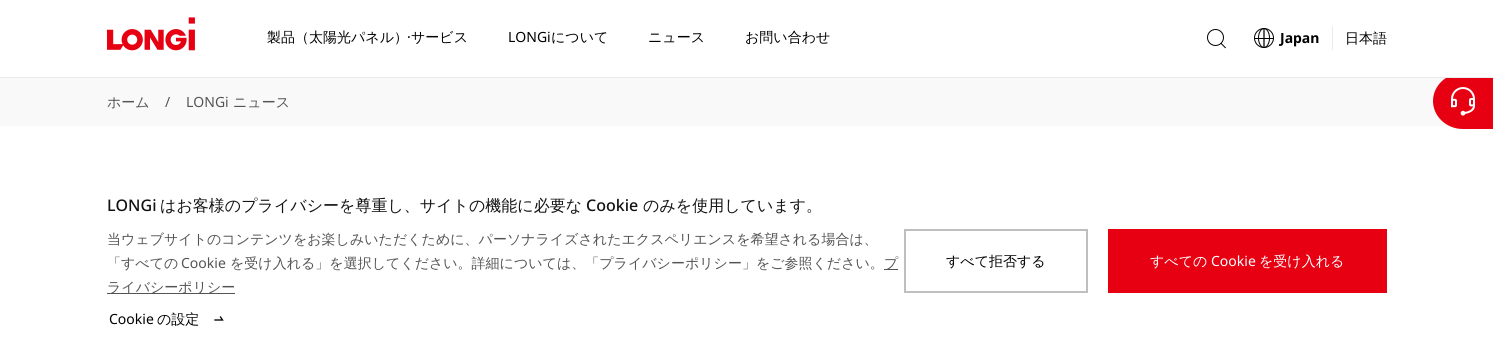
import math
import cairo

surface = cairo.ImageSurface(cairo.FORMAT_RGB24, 1493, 347)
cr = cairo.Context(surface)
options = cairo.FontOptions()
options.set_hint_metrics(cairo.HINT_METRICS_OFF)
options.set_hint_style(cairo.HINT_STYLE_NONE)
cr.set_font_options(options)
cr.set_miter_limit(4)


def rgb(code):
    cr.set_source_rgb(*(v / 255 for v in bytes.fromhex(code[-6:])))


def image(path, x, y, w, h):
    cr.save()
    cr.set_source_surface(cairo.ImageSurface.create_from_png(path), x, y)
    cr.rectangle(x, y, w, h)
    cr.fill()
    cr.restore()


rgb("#ffffff")
cr.paint()
rgb("#f9f9f9")
cr.rectangle(0, 78, 1450, 48)
cr.fill()
rgb("#e60012")
cr.new_path()
cr.move_to(1463, 73)
cr.line_to(1493, 73)
cr.line_to(1493, 129)
cr.line_to(1463, 129)
cr.curve_to(1446, 129, 1433, 116, 1433, 101)
cr.curve_to(1433, 86, 1446, 73, 1463, 73)
cr.close_path()
cr.fill()
rgb("#eaeaea")
cr.rectangle(0, 77, 1493, 1)
cr.fill()
rgb("#ffffff")
cr.rectangle(1447, 73, 46, 4)
cr.fill()
image("img/1.png", 107, 17, 88, 34)
image("img/2.png", 1207, 29, 19, 20)
image("img/3.png", 1254, 28, 20, 20)
rgb("#eaeaea")
cr.rectangle(1332, 26, 1, 24)
cr.fill()
image("img/4.png", 1451, 87, 24, 29)
rgb("#545454")
cr.rectangle(884, 269, 14, 1)
cr.fill()
cr.rectangle(107, 293, 128, 1)
cr.fill()
cr.new_path()
cr.move_to(215, 320)
cr.line_to(222.5, 320)
cr.line_to(220.5, 317)
rgb("#000000")
cr.set_line_width(1.3)
cr.set_line_cap(cairo.LINE_CAP_SQUARE)
cr.stroke()
cr.rectangle(905, 230, 182, 62)
rgb("#bfbfbf")
cr.set_line_width(2)
cr.set_line_cap(cairo.LINE_CAP_BUTT)
cr.stroke()
rgb("#e60012")
cr.rectangle(1108, 229, 279, 64)
cr.fill()
cr.select_font_face("WenQuanYi Zen Hei Medium")
cr.set_font_size(14)
rgb("#000000")
cr.move_to(267, 42)
cr.show_text("製品（太陽光パネル）")
cr.select_font_face("Noto Sans")
cr.move_to(407, 42)
cr.show_text("·")
cr.select_font_face("WenQuanYi Zen Hei Medium")
cr.move_to(411, 42)
cr.show_text("サービス")
cr.select_font_face("Noto Sans")
cr.move_to(508, 42)
cr.show_text("LONGi")
cr.select_font_face("WenQuanYi Zen Hei Medium")
for x, y, s in [
    (551, 42, "について"),
    (648, 42, "ニュース"),
    (745, 42, "お問い合わせ"),
]:
    cr.move_to(x, y)
    cr.show_text(s)
cr.select_font_face("Noto Sans", cairo.FONT_SLANT_NORMAL, cairo.FONT_WEIGHT_BOLD)
cr.move_to(1280, 43)
cr.show_text("Japan")
cr.select_font_face("WenQuanYi Zen Hei Medium")
cr.move_to(1345, 43)
cr.show_text("日本語")
rgb("#545454")
cr.move_to(107, 107)
cr.show_text("ホーム")
cr.select_font_face("Noto Sans")
cr.move_to(165, 107)
cr.show_text("/")
cr.move_to(186, 107)
cr.show_text("LONGi")
cr.select_font_face("WenQuanYi Zen Hei Medium")
cr.move_to(233, 107)
cr.show_text("ニュース")
cr.select_font_face("Noto Sans Medium")
cr.set_font_size(16)
rgb("#131313")
cr.move_to(107, 211)
cr.show_text("LONGi")
cr.select_font_face("WenQuanYi Zen Hei Medium")
cr.move_to(160, 211)
cr.show_text("はお客様のプライバシーを尊重し、サイトの機能に必要な")
cr.select_font_face("Noto Sans Medium")
cr.move_to(586, 211)
cr.show_text("Cookie")
cr.select_font_face("WenQuanYi Zen Hei Medium")
cr.move_to(643, 211)
cr.show_text("のみを使用しています。")
cr.set_font_size(14)
rgb("#545454")
cr.move_to(107, 244)
cr.show_text("当ウェブサイトのコンテンツをお楽しみいただくために、パーソナライズされたエクスペリエンスを希望される場合は、")
cr.move_to(107, 268)
cr.show_text("「すべての")
cr.select_font_face("Noto Sans")
cr.move_to(181, 268)
cr.show_text("Cookie")
cr.select_font_face("WenQuanYi Zen Hei Medium")
for x, y, s in [
    (230, 268, "を受け入れる」を選択してください。詳細については、「プライバシーポリシー」をご参照ください。"),
    (884, 268, "プ"),
    (107, 292, "ライバシーポリシー"),
]:
    cr.move_to(x, y)
    cr.show_text(s)
cr.select_font_face("Noto Sans")
rgb("#000000")
cr.move_to(109, 324)
cr.show_text("Cookie")
cr.select_font_face("WenQuanYi Zen Hei Medium")
cr.move_to(157, 324)
cr.show_text("の設定")
cr.move_to(946, 266)
cr.show_text("すべて拒否する")
rgb("#ffffff")
cr.move_to(1150, 266)
cr.show_text("すべての")
cr.select_font_face("Noto Sans")
cr.move_to(1211, 266)
cr.show_text("Cookie")
cr.select_font_face("WenQuanYi Zen Hei Medium")
cr.move_to(1259, 266)
cr.show_text("を受け入れる")
surface.write_to_png("page.png")
